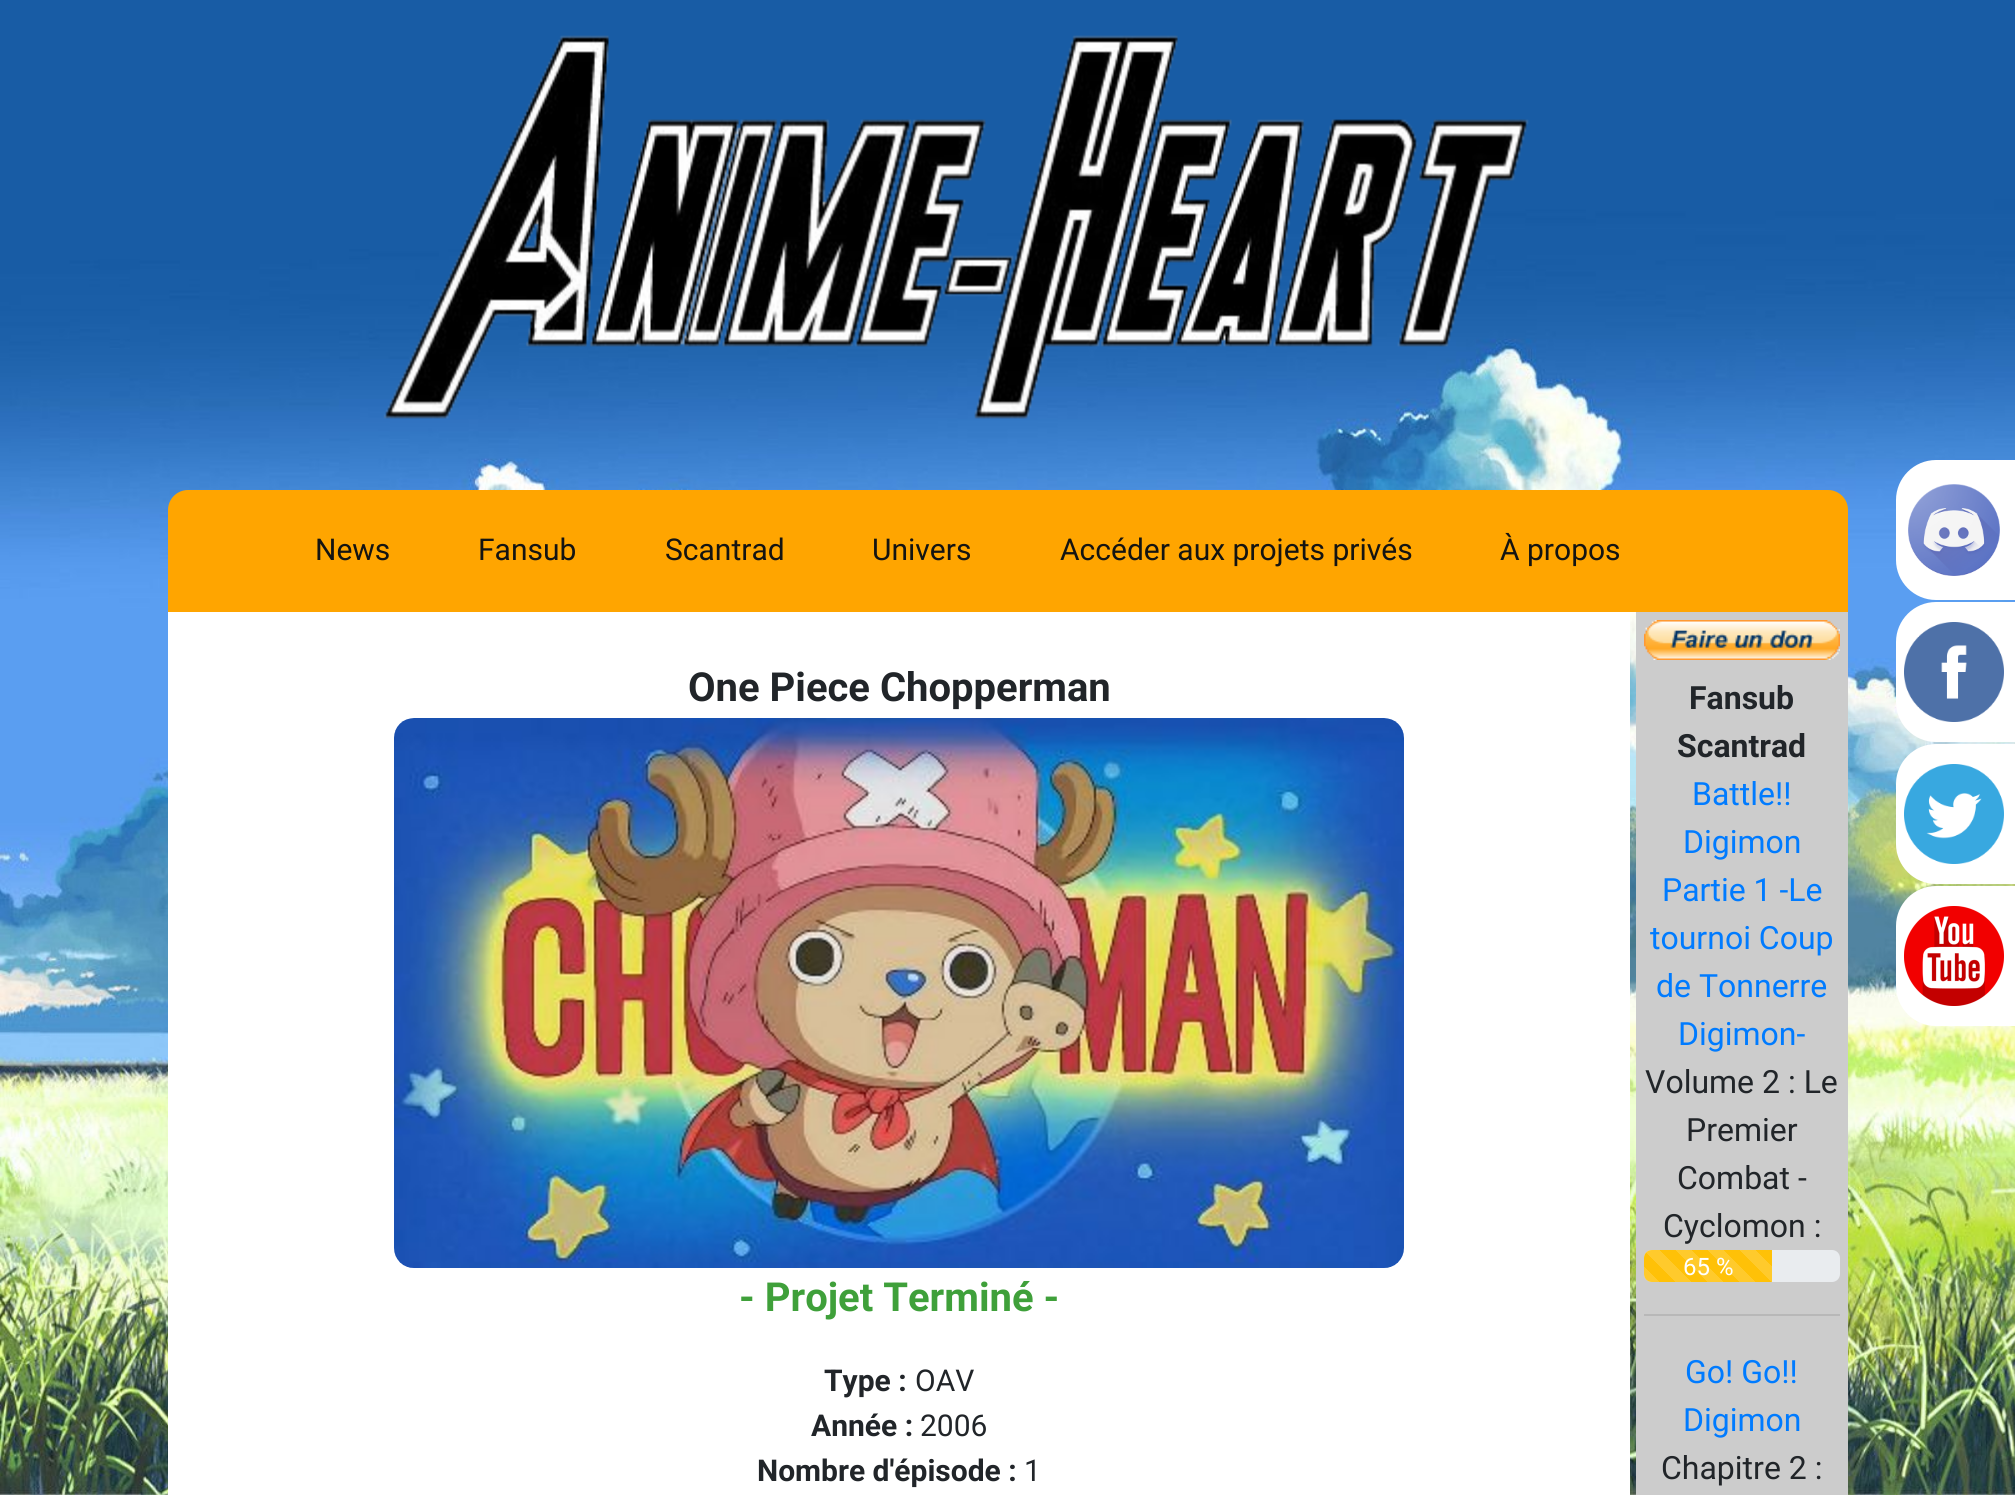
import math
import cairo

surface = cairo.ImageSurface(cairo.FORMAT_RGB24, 2015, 1495)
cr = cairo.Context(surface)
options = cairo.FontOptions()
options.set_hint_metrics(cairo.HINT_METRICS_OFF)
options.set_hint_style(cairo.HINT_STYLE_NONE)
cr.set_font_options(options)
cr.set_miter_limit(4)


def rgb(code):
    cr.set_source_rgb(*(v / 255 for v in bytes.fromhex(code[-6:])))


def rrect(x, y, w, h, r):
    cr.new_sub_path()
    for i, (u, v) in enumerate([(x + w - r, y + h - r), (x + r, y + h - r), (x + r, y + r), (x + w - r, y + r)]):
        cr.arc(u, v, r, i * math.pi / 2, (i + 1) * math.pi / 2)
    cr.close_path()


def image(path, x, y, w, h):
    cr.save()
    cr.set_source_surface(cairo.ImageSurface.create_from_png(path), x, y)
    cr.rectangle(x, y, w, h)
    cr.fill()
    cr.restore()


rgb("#ffffff")
cr.paint()
image("img/1.png", 0, 0, 2015, 1495)
image("img/2.png", 383, 35, 1146, 384)
rgb("#ffa500")
cr.new_path()
cr.move_to(188, 490)
cr.line_to(1828, 490)
cr.curve_to(1839, 490, 1848, 499, 1848, 510)
cr.line_to(1848, 612)
cr.line_to(168, 612)
cr.line_to(168, 510)
cr.curve_to(168, 499, 177, 490, 188, 490)
cr.close_path()
cr.fill()
rgb("#ffffff")
cr.new_path()
cr.move_to(1936, 460)
cr.line_to(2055, 460)
cr.line_to(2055, 600)
cr.line_to(1936, 600)
cr.curve_to(1914, 600, 1896, 582, 1896, 560)
cr.line_to(1896, 500)
cr.curve_to(1896, 478, 1914, 460, 1936, 460)
cr.close_path()
cr.fill()
image("img/3.png", 1908, 484, 92, 92)
cr.new_path()
cr.move_to(1936, 602)
cr.line_to(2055, 602)
cr.line_to(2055, 742)
cr.line_to(1936, 742)
cr.curve_to(1914, 742, 1896, 724, 1896, 702)
cr.line_to(1896, 642)
cr.curve_to(1896, 620, 1914, 602, 1936, 602)
cr.close_path()
cr.fill()
image("img/4.png", 1904, 622, 100, 100)
cr.new_path()
cr.move_to(1936, 744)
cr.line_to(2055, 744)
cr.line_to(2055, 884)
cr.line_to(1936, 884)
cr.curve_to(1914, 884, 1896, 866, 1896, 844)
cr.line_to(1896, 784)
cr.curve_to(1896, 762, 1914, 744, 1936, 744)
cr.close_path()
cr.fill()
image("img/5.png", 1904, 764, 100, 100)
cr.new_path()
cr.move_to(1936, 886)
cr.line_to(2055, 886)
cr.line_to(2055, 1026)
cr.line_to(1936, 1026)
cr.curve_to(1914, 1026, 1896, 1008, 1896, 986)
cr.line_to(1896, 926)
cr.curve_to(1896, 904, 1914, 886, 1936, 886)
cr.close_path()
cr.fill()
image("img/6.png", 1904, 906, 100, 100)
cr.rectangle(168, 612, 1462, 883)
cr.fill()
image("img/7.png", 394, 718, 1010, 550)
rgb("#cccccc")
cr.rectangle(1636, 612, 212, 883)
cr.fill()
image("img/8.png", 1644, 620, 196, 40)
rgb("#e9ecef")
rrect(1644, 1250, 196, 32, 8)
cr.fill()
rgb("#ffc107")
cr.new_path()
cr.move_to(1652, 1250)
cr.line_to(1772, 1250)
cr.line_to(1772, 1282)
cr.line_to(1652, 1282)
cr.curve_to(1647.5, 1282, 1644, 1278.5, 1644, 1274)
cr.line_to(1644, 1258)
cr.curve_to(1644, 1253.5, 1647.5, 1250, 1652, 1250)
cr.close_path()
cr.fill()
gradient = cairo.LinearGradient(1644, 1282, 1676, 1250)
gradient.add_color_stop_rgba(0.25, 1, 1, 1, 0.15)
gradient.add_color_stop_rgba(0.25, 1, 1, 1, 0)
gradient.add_color_stop_rgba(0.5, 1, 1, 1, 0)
gradient.add_color_stop_rgba(0.5, 1, 1, 1, 0.15)
gradient.add_color_stop_rgba(0.75, 1, 1, 1, 0.15)
gradient.add_color_stop_rgba(0.75, 1, 1, 1, 0)
gradient.add_color_stop_rgba(1, 0, 0, 0, 0)
cr.set_source(gradient)
cr.new_path()
cr.move_to(1652, 1250)
cr.line_to(1676, 1250)
cr.line_to(1676, 1282)
cr.line_to(1652, 1282)
cr.curve_to(1647.5, 1282, 1644, 1278.5, 1644, 1274)
cr.line_to(1644, 1258)
cr.curve_to(1644, 1253.5, 1647.5, 1250, 1652, 1250)
cr.close_path()
cr.fill()
gradient = cairo.LinearGradient(1676, 1282, 1708, 1250)
gradient.add_color_stop_rgba(0.25, 1, 0.792, 0.173, 1)
gradient.add_color_stop_rgba(0.25, 1, 0.757, 0.027, 1)
gradient.add_color_stop_rgba(0.5, 1, 0.757, 0.027, 1)
gradient.add_color_stop_rgba(0.5, 1, 0.792, 0.173, 1)
gradient.add_color_stop_rgba(0.75, 1, 0.792, 0.173, 1)
gradient.add_color_stop_rgba(0.75, 1, 0.757, 0.027, 1)
gradient.add_color_stop_rgba(1, 1, 0.757, 0.027, 1)
cr.set_source(gradient)
cr.rectangle(1676, 1250, 32, 32)
cr.fill()
gradient = cairo.LinearGradient(1708, 1282, 1740, 1250)
gradient.add_color_stop_rgba(0.25, 1, 0.792, 0.173, 1)
gradient.add_color_stop_rgba(0.25, 1, 0.757, 0.027, 1)
gradient.add_color_stop_rgba(0.5, 1, 0.757, 0.027, 1)
gradient.add_color_stop_rgba(0.5, 1, 0.792, 0.173, 1)
gradient.add_color_stop_rgba(0.75, 1, 0.792, 0.173, 1)
gradient.add_color_stop_rgba(0.75, 1, 0.757, 0.027, 1)
gradient.add_color_stop_rgba(1, 1, 0.757, 0.027, 1)
cr.set_source(gradient)
cr.rectangle(1708, 1250, 32, 32)
cr.fill()
gradient = cairo.LinearGradient(1740, 1282, 1772, 1250)
gradient.add_color_stop_rgba(0.25, 1, 0.792, 0.173, 1)
gradient.add_color_stop_rgba(0.25, 1, 0.757, 0.027, 1)
gradient.add_color_stop_rgba(0.5, 1, 0.757, 0.027, 1)
gradient.add_color_stop_rgba(0.5, 1, 0.792, 0.173, 1)
gradient.add_color_stop_rgba(0.75, 1, 0.792, 0.173, 1)
gradient.add_color_stop_rgba(0.75, 1, 0.757, 0.027, 1)
gradient.add_color_stop_rgba(1, 1, 0.757, 0.027, 1)
cr.set_source(gradient)
cr.rectangle(1740, 1250, 32, 32)
cr.fill()
rgb("#b8b8b8")
cr.rectangle(1644, 1314, 196, 2)
cr.fill()
cr.select_font_face("Roboto")
cr.set_font_size(30)
rgb("#141412")
for x, y, s in [
    (315, 560, "News"),
    (478, 560, "Fansub"),
    (665, 560, "Scantrad"),
    (872, 560, "Univers"),
    (1060, 560, "Accéder aux projets privés"),
    (1500, 560, "À propos"),
]:
    cr.move_to(x, y)
    cr.show_text(s)
cr.select_font_face("Roboto", cairo.FONT_SLANT_NORMAL, cairo.FONT_WEIGHT_BOLD)
cr.set_font_size(40)
rgb("#212529")
cr.move_to(688, 701)
cr.show_text("One Piece Chopperman")
rgb("#3fa03a")
cr.move_to(739, 1311)
cr.show_text("- Projet Terminé -")
cr.set_font_size(30)
rgb("#212529")
cr.move_to(824, 1391)
cr.show_text("Type :")
cr.select_font_face("Roboto")
cr.move_to(915, 1391)
cr.show_text("OAV")
cr.select_font_face("Roboto", cairo.FONT_SLANT_NORMAL, cairo.FONT_WEIGHT_BOLD)
cr.move_to(811, 1436)
cr.show_text("Année :")
cr.select_font_face("Roboto")
cr.move_to(920, 1436)
cr.show_text("2006")
cr.select_font_face("Roboto", cairo.FONT_SLANT_NORMAL, cairo.FONT_WEIGHT_BOLD)
cr.move_to(757, 1481)
cr.show_text("Nombre d'épisode :")
cr.select_font_face("Roboto")
cr.move_to(1024, 1481)
cr.show_text("1")
cr.select_font_face("Roboto", cairo.FONT_SLANT_NORMAL, cairo.FONT_WEIGHT_BOLD)
cr.set_font_size(32)
cr.move_to(1689, 709)
cr.show_text("Fansub")
cr.move_to(1677, 757)
cr.show_text("Scantrad")
cr.select_font_face("Roboto")
rgb("#007bff")
for x, y, s in [
    (1692, 805, "Battle!!"),
    (1683, 853, "Digimon"),
    (1662, 901, "Partie 1 -Le"),
    (1650, 949, "tournoi Coup"),
    (1656, 997, "de Tonnerre"),
    (1678, 1045, "Digimon-"),
]:
    cr.move_to(x, y)
    cr.show_text(s)
rgb("#212529")
for x, y, s in [
    (1645, 1093, "Volume 2 : Le"),
    (1686, 1141, "Premier"),
    (1677, 1189, "Combat -"),
    (1663, 1237, "Cyclomon :"),
]:
    cr.move_to(x, y)
    cr.show_text(s)
cr.set_font_size(24)
rgb("#ffffff")
cr.move_to(1683, 1275)
cr.show_text("65 %")
cr.set_font_size(32)
rgb("#007bff")
cr.move_to(1685, 1383)
cr.show_text("Go! Go!!")
cr.move_to(1683, 1431)
cr.show_text("Digimon")
rgb("#212529")
cr.move_to(1661, 1479)
cr.show_text("Chapitre 2 :")
surface.write_to_png("page.png")
